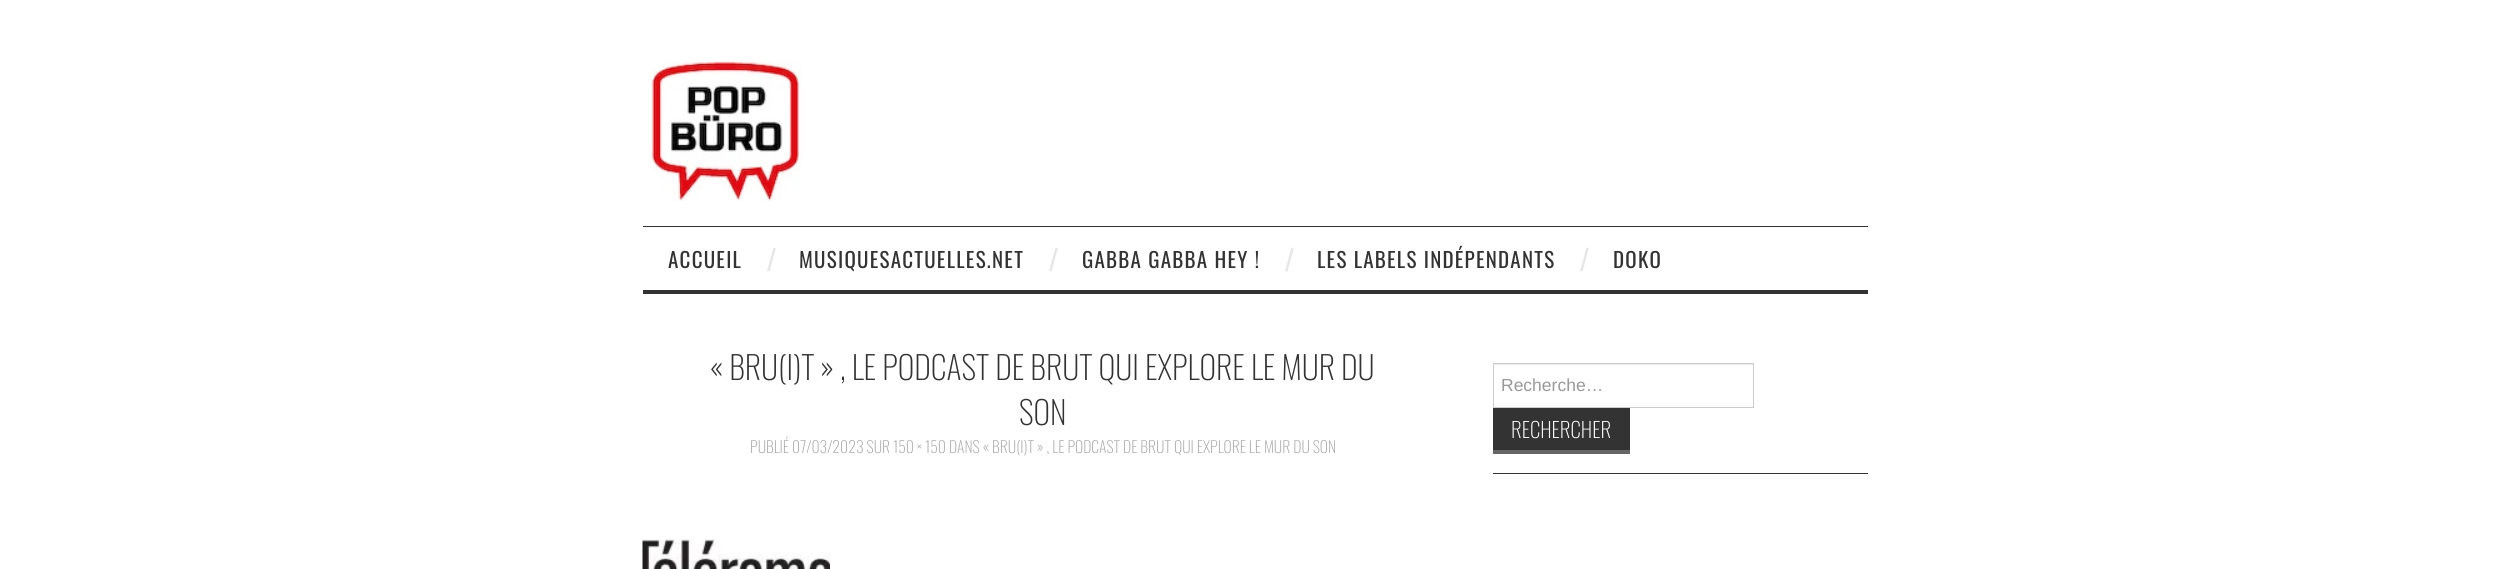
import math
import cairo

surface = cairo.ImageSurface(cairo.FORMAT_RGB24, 2509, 569)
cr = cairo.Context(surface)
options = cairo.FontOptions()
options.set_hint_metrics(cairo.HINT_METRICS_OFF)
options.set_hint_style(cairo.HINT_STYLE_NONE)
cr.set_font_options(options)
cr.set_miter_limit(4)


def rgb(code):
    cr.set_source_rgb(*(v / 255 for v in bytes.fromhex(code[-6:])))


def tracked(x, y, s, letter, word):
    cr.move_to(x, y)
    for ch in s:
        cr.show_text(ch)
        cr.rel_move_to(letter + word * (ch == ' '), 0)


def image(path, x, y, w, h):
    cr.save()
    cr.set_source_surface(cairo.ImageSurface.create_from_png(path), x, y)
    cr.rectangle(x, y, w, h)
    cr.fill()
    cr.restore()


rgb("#ffffff")
cr.paint()
image("img/1.png", 650, 60, 152, 141)
rgb("#333333")
cr.rectangle(643, 226, 1225, 1)
cr.fill()
cr.rectangle(643, 290, 1225, 4)
cr.fill()
image("img/2.png", 642, 538, 188, 31)
cr.rectangle(1493, 473, 375, 1)
cr.fill()
rgb("#ececec")
cr.rectangle(1494, 364, 259, 1)
cr.fill()
cr.rectangle(1493.5, 363.5, 260, 44)
rgb("#cccccc")
cr.set_line_width(1)
cr.stroke()
rgb("#333333")
cr.rectangle(1493, 408, 137, 42)
cr.fill()
rgb("#666666")
cr.rectangle(1493, 450, 137, 4)
cr.fill()
cr.select_font_face("Oswald")
cr.set_font_size(21)
rgb("#333333")
tracked(668, 268, "ACCUEIL", 1.25, 0)
cr.select_font_face("Liberation Sans")
cr.set_font_size(32)
rgb("#e6e6e6")
cr.move_to(767, 271)
cr.show_text("/")
cr.select_font_face("Oswald")
cr.set_font_size(21)
rgb("#333333")
tracked(799, 268, "MUSIQUESACTUELLES.NET", 1.25, 0)
cr.select_font_face("Liberation Sans")
cr.set_font_size(32)
rgb("#e6e6e6")
cr.move_to(1049, 271)
cr.show_text("/")
cr.select_font_face("Oswald")
cr.set_font_size(21)
rgb("#333333")
tracked(1082, 268, "GABBA GABBA HEY !", 1.25, 0)
cr.select_font_face("Liberation Sans")
cr.set_font_size(32)
rgb("#e6e6e6")
cr.move_to(1285, 271)
cr.show_text("/")
cr.select_font_face("Oswald")
cr.set_font_size(21)
rgb("#333333")
tracked(1317, 268, "LES LABELS INDÉPENDANTS", 1.25, 0)
cr.select_font_face("Liberation Sans")
cr.set_font_size(32)
rgb("#e6e6e6")
cr.move_to(1580, 271)
cr.show_text("/")
cr.select_font_face("Oswald")
cr.set_font_size(21)
rgb("#333333")
tracked(1613, 268, "DOKO", 1.25, 0)
cr.select_font_face("Oswald ExtraLight")
cr.set_font_size(32)
cr.move_to(710, 380)
cr.show_text("« BRU(I)T » , LE PODCAST DE BRUT QUI EXPLORE LE MUR DU")
cr.move_to(1019, 425)
cr.show_text("SON")
cr.set_font_size(15.75)
rgb("#a6a6a6")
cr.move_to(750, 453)
cr.show_text("PUBLIÉ 07/03/2023 SUR 150 × 150 DANS « BRU(I)T » , LE PODCAST DE BRUT QUI EXPLORE LE MUR DU SON")
cr.select_font_face("Liberation Sans")
cr.set_font_size(17.5)
rgb("#999999")
cr.move_to(1501, 391)
cr.show_text("Recherche…")
cr.select_font_face("Oswald ExtraLight")
cr.set_font_size(21)
rgb("#ffffff")
cr.move_to(1511, 438)
cr.show_text("RECHERCHER")
surface.write_to_png("page.png")
